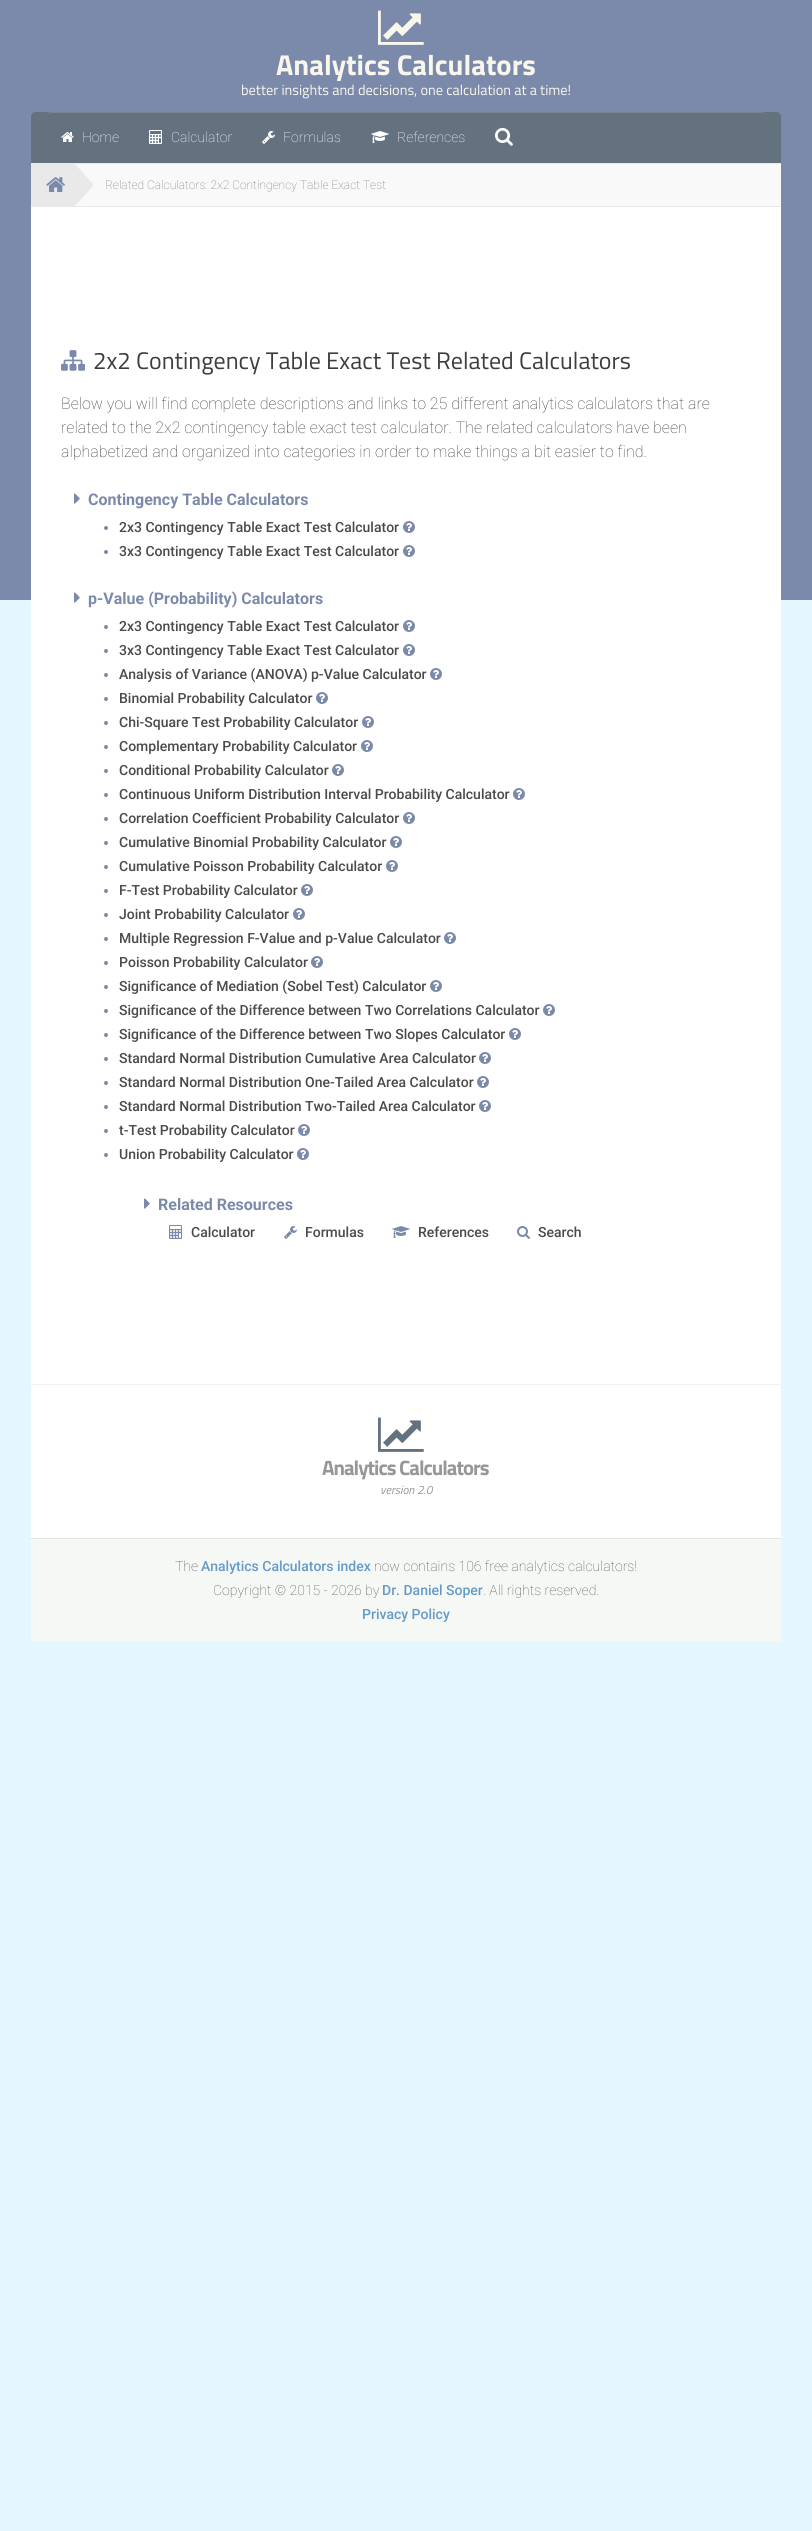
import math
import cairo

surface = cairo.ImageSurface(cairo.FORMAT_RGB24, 812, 2531)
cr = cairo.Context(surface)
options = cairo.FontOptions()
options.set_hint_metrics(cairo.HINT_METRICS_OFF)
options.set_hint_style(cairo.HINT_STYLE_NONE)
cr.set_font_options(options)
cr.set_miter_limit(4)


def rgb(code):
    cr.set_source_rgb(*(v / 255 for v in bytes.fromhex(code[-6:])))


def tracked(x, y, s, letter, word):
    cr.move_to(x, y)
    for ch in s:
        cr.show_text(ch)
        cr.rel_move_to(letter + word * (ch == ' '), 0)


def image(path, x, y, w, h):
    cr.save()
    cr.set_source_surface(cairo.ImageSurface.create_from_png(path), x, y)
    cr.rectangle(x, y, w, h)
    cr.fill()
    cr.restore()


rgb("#e4f6ff")
cr.paint()
rgb("#7b8aaa")
cr.rectangle(0, 0, 812, 600)
cr.fill()
image("img/1.png", 378, 10, 46, 35)
rgb("#64717e")
cr.new_path()
cr.move_to(36, 112)
cr.line_to(776, 112)
cr.curve_to(779, 112, 781, 114, 781, 117)
cr.line_to(781, 163)
cr.line_to(31, 163)
cr.line_to(31, 117)
cr.curve_to(31, 114, 33, 112, 36, 112)
cr.close_path()
cr.fill()
rgb("#7b8691")
cr.new_path()
cr.move_to(51, 113)
cr.line_to(761, 113)
cr.curve_to(764, 113, 766, 115, 766, 118)
cr.curve_to(766, 115, 764, 112, 761, 112)
cr.line_to(51, 112)
cr.curve_to(48, 112, 46, 115, 46, 118)
cr.curve_to(46, 115, 48, 113, 51, 113)
cr.close_path()
cr.fill()
image("img/2.png", 61, 132, 13, 10)
image("img/3.png", 149, 130, 13, 14)
image("img/4.png", 262, 131, 13, 13)
image("img/5.png", 371, 131, 18, 12)
image("img/6.png", 495, 127, 18, 19)
for x, y, w, h, color in [
    (75, 164, 706, 42, "#f9f9f9"),
    (31, 163, 750, 1, "#e9e9e9"),
    (31, 206, 750, 1, "#e9e9e9"),
    (31, 164, 44, 42, "#e9e9e9"),
]:
    rgb(color)
    cr.rectangle(x, y, w, h)
    cr.fill()
image("img/7.png", 46, 177, 19, 15)
cr.new_path()
cr.move_to(75, 206)
cr.line_to(75, 164)
cr.line_to(93, 184)
cr.line_to(93, 186)
cr.close_path()
cr.fill()
rgb("#ffffff")
cr.rectangle(31, 207, 750, 1177)
cr.fill()
image("img/8.png", 61, 350, 24, 21)
image("img/9.png", 74, 493, 6, 11)
rgb("#7b8aaa")
cr.arc(106, 528, 2, 0, 2 * math.pi)
cr.fill()
image("img/10.png", 403, 521, 12, 12)
cr.arc(106, 552, 2, 0, 2 * math.pi)
cr.fill()
image("img/10.png", 403, 545, 12, 12)
image("img/9.png", 74, 592, 6, 11)
cr.arc(106, 627, 2, 0, 2 * math.pi)
cr.fill()
image("img/10.png", 403, 620, 12, 12)
cr.arc(106, 651, 2, 0, 2 * math.pi)
cr.fill()
image("img/10.png", 403, 644, 12, 12)
cr.arc(106, 675, 2, 0, 2 * math.pi)
cr.fill()
image("img/10.png", 430, 668, 12, 12)
cr.arc(106, 699, 2, 0, 2 * math.pi)
cr.fill()
image("img/10.png", 316, 692, 12, 12)
cr.arc(106, 723, 2, 0, 2 * math.pi)
cr.fill()
image("img/10.png", 362, 716, 12, 12)
cr.arc(106, 747, 2, 0, 2 * math.pi)
cr.fill()
image("img/10.png", 361, 740, 12, 12)
cr.arc(106, 771, 2, 0, 2 * math.pi)
cr.fill()
image("img/10.png", 332, 764, 12, 12)
cr.arc(106, 795, 2, 0, 2 * math.pi)
cr.fill()
image("img/10.png", 513, 788, 12, 12)
cr.arc(106, 819, 2, 0, 2 * math.pi)
cr.fill()
image("img/10.png", 403, 812, 12, 12)
cr.arc(106, 843, 2, 0, 2 * math.pi)
cr.fill()
image("img/10.png", 390, 836, 12, 12)
cr.arc(106, 867, 2, 0, 2 * math.pi)
cr.fill()
image("img/10.png", 386, 860, 12, 12)
cr.arc(106, 891, 2, 0, 2 * math.pi)
cr.fill()
image("img/10.png", 301, 884, 12, 12)
cr.arc(106, 915, 2, 0, 2 * math.pi)
cr.fill()
image("img/10.png", 293, 908, 12, 12)
cr.arc(106, 939, 2, 0, 2 * math.pi)
cr.fill()
image("img/10.png", 444, 932, 12, 12)
cr.arc(106, 963, 2, 0, 2 * math.pi)
cr.fill()
image("img/10.png", 311, 956, 12, 12)
cr.arc(106, 987, 2, 0, 2 * math.pi)
cr.fill()
image("img/10.png", 430, 980, 12, 12)
cr.arc(106, 1011, 2, 0, 2 * math.pi)
cr.fill()
image("img/10.png", 543, 1004, 12, 12)
cr.arc(106, 1035, 2, 0, 2 * math.pi)
cr.fill()
image("img/10.png", 509, 1028, 12, 12)
cr.arc(106, 1059, 2, 0, 2 * math.pi)
cr.fill()
image("img/10.png", 479, 1052, 12, 12)
cr.arc(106, 1083, 2, 0, 2 * math.pi)
cr.fill()
image("img/10.png", 477, 1076, 12, 12)
cr.arc(106, 1107, 2, 0, 2 * math.pi)
cr.fill()
image("img/10.png", 479, 1100, 12, 12)
cr.arc(106, 1131, 2, 0, 2 * math.pi)
cr.fill()
image("img/10.png", 298, 1124, 12, 12)
cr.arc(106, 1155, 2, 0, 2 * math.pi)
cr.fill()
image("img/10.png", 297, 1148, 12, 12)
image("img/9.png", 144, 1198, 6, 11)
image("img/11.png", 169, 1225, 13, 14)
image("img/12.png", 284, 1226, 13, 13)
image("img/13.png", 392, 1226, 18, 12)
image("img/14.png", 517, 1226, 13, 13)
rgb("#ffffff")
cr.rectangle(31, 1385, 750, 153)
cr.fill()
rgb("#f2f2f2")
cr.rectangle(31, 1384, 750, 1)
cr.fill()
image("img/15.png", 378, 1417, 46, 35)
rgb("#f6f8f6")
cr.rectangle(31, 1539, 750, 102)
cr.fill()
rgb("#e5e5e5")
cr.rectangle(31, 1538, 750, 1)
cr.fill()
cr.select_font_face("Titillium Web", cairo.FONT_SLANT_NORMAL, cairo.FONT_WEIGHT_BOLD)
cr.set_font_size(28.75)
rgb("#f9f7ec")
cr.move_to(276, 75)
cr.show_text("Analytics Calculators")
cr.select_font_face("Titillium Web")
cr.set_font_size(14.4)
cr.move_to(241, 95)
cr.show_text("better insights and decisions, one calculation at a time!")
cr.select_font_face("Roboto Thin")
cr.set_font_size(14)
rgb("#ffffff")
for x, y, s in [
    (82, 142, "Home"),
    (171, 142, "Calculator"),
    (283, 142, "Formulas"),
    (397, 142, "References"),
]:
    cr.move_to(x, y)
    cr.show_text(s)
cr.set_font_size(12)
rgb("#7a7a7a")
cr.move_to(105, 189)
cr.show_text("Related Calculators: 2x2 Contingency Table Exact Test")
cr.select_font_face("Titillium Web")
cr.set_font_size(24)
rgb("#3d3d3d")
cr.move_to(93, 369)
cr.show_text("2x2 Contingency Table Exact Test Related Calculators")
cr.select_font_face("Roboto Thin")
cr.set_font_size(16)
for x, y, s in [
    (61, 409, "Below you will find complete descriptions and links to 25 different analytics calculators that are"),
    (61, 433, "related to the 2x2 contingency table exact test calculator. The related calculators have been"),
    (61, 457, "alphabetized and organized into categories in order to make things a bit easier to find."),
]:
    cr.move_to(x, y)
    cr.show_text(s)
cr.select_font_face("Roboto", cairo.FONT_SLANT_NORMAL, cairo.FONT_WEIGHT_BOLD)
rgb("#7b8aaa")
cr.move_to(88, 505)
cr.show_text("Contingency Table Calculators")
cr.select_font_face("Roboto Medium")
cr.set_font_size(14)
rgb("#4a4a4a")
cr.move_to(119, 532)
cr.show_text("2x3 Contingency Table Exact Test Calculator")
cr.move_to(119, 556)
cr.show_text("3x3 Contingency Table Exact Test Calculator")
cr.select_font_face("Roboto", cairo.FONT_SLANT_NORMAL, cairo.FONT_WEIGHT_BOLD)
cr.set_font_size(16)
rgb("#7b8aaa")
cr.move_to(88, 604)
cr.show_text("p-Value (Probability) Calculators")
cr.select_font_face("Roboto Medium")
cr.set_font_size(14)
rgb("#4a4a4a")
for x, y, s in [
    (119, 631, "2x3 Contingency Table Exact Test Calculator"),
    (119, 655, "3x3 Contingency Table Exact Test Calculator"),
    (119, 679, "Analysis of Variance (ANOVA) p-Value Calculator"),
    (119, 703, "Binomial Probability Calculator"),
    (119, 727, "Chi-Square Test Probability Calculator"),
    (119, 751, "Complementary Probability Calculator"),
    (119, 775, "Conditional Probability Calculator"),
    (119, 799, "Continuous Uniform Distribution Interval Probability Calculator"),
    (119, 823, "Correlation Coefficient Probability Calculator"),
    (119, 847, "Cumulative Binomial Probability Calculator"),
    (119, 871, "Cumulative Poisson Probability Calculator"),
    (119, 895, "F-Test Probability Calculator"),
    (119, 919, "Joint Probability Calculator"),
    (119, 943, "Multiple Regression F-Value and p-Value Calculator"),
    (119, 967, "Poisson Probability Calculator"),
    (119, 991, "Significance of Mediation (Sobel Test) Calculator"),
    (119, 1015, "Significance of the Difference between Two Correlations Calculator"),
    (119, 1039, "Significance of the Difference between Two Slopes Calculator"),
    (119, 1063, "Standard Normal Distribution Cumulative Area Calculator"),
    (119, 1087, "Standard Normal Distribution One-Tailed Area Calculator"),
    (119, 1111, "Standard Normal Distribution Two-Tailed Area Calculator"),
    (119, 1135, "t-Test Probability Calculator"),
    (119, 1159, "Union Probability Calculator"),
]:
    cr.move_to(x, y)
    cr.show_text(s)
cr.select_font_face("Roboto", cairo.FONT_SLANT_NORMAL, cairo.FONT_WEIGHT_BOLD)
cr.set_font_size(16)
rgb("#7b8aaa")
cr.move_to(158, 1210)
cr.show_text("Related Resources")
cr.select_font_face("Roboto Medium")
cr.set_font_size(14)
rgb("#4a4a4a")
for x, y, s in [
    (191, 1237, "Calculator"),
    (305, 1237, "Formulas"),
    (418, 1237, "References"),
    (538, 1237, "Search"),
]:
    cr.move_to(x, y)
    cr.show_text(s)
cr.select_font_face("Titillium Web", cairo.FONT_SLANT_NORMAL, cairo.FONT_WEIGHT_BOLD)
cr.set_font_size(20.75)
rgb("#979797")
tracked(322, 1475, "Analytics Calculators", -1, 0)
cr.select_font_face("Titillium Web", cairo.FONT_SLANT_ITALIC)
cr.set_font_size(12)
cr.move_to(380, 1494)
cr.show_text("version 2.0")
cr.select_font_face("Roboto Thin")
cr.set_font_size(14)
rgb("#575757")
cr.move_to(175, 1571)
cr.show_text("The")
cr.select_font_face("Roboto Medium")
rgb("#649ac8")
cr.move_to(201, 1571)
cr.show_text("Analytics Calculators index")
cr.select_font_face("Roboto Thin")
rgb("#575757")
cr.move_to(374, 1571)
cr.show_text("now contains 106 free analytics calculators!")
cr.move_to(213, 1595)
cr.show_text("Copyright © 2015 - 2026 by")
cr.select_font_face("Roboto Medium")
rgb("#649ac8")
cr.move_to(382, 1595)
cr.show_text("Dr. Daniel Soper")
cr.select_font_face("Roboto Thin")
rgb("#575757")
cr.move_to(483, 1595)
cr.show_text(". All rights reserved.")
cr.select_font_face("Roboto Medium")
rgb("#649ac8")
cr.move_to(362, 1619)
cr.show_text("Privacy Policy")
surface.write_to_png("page.png")
